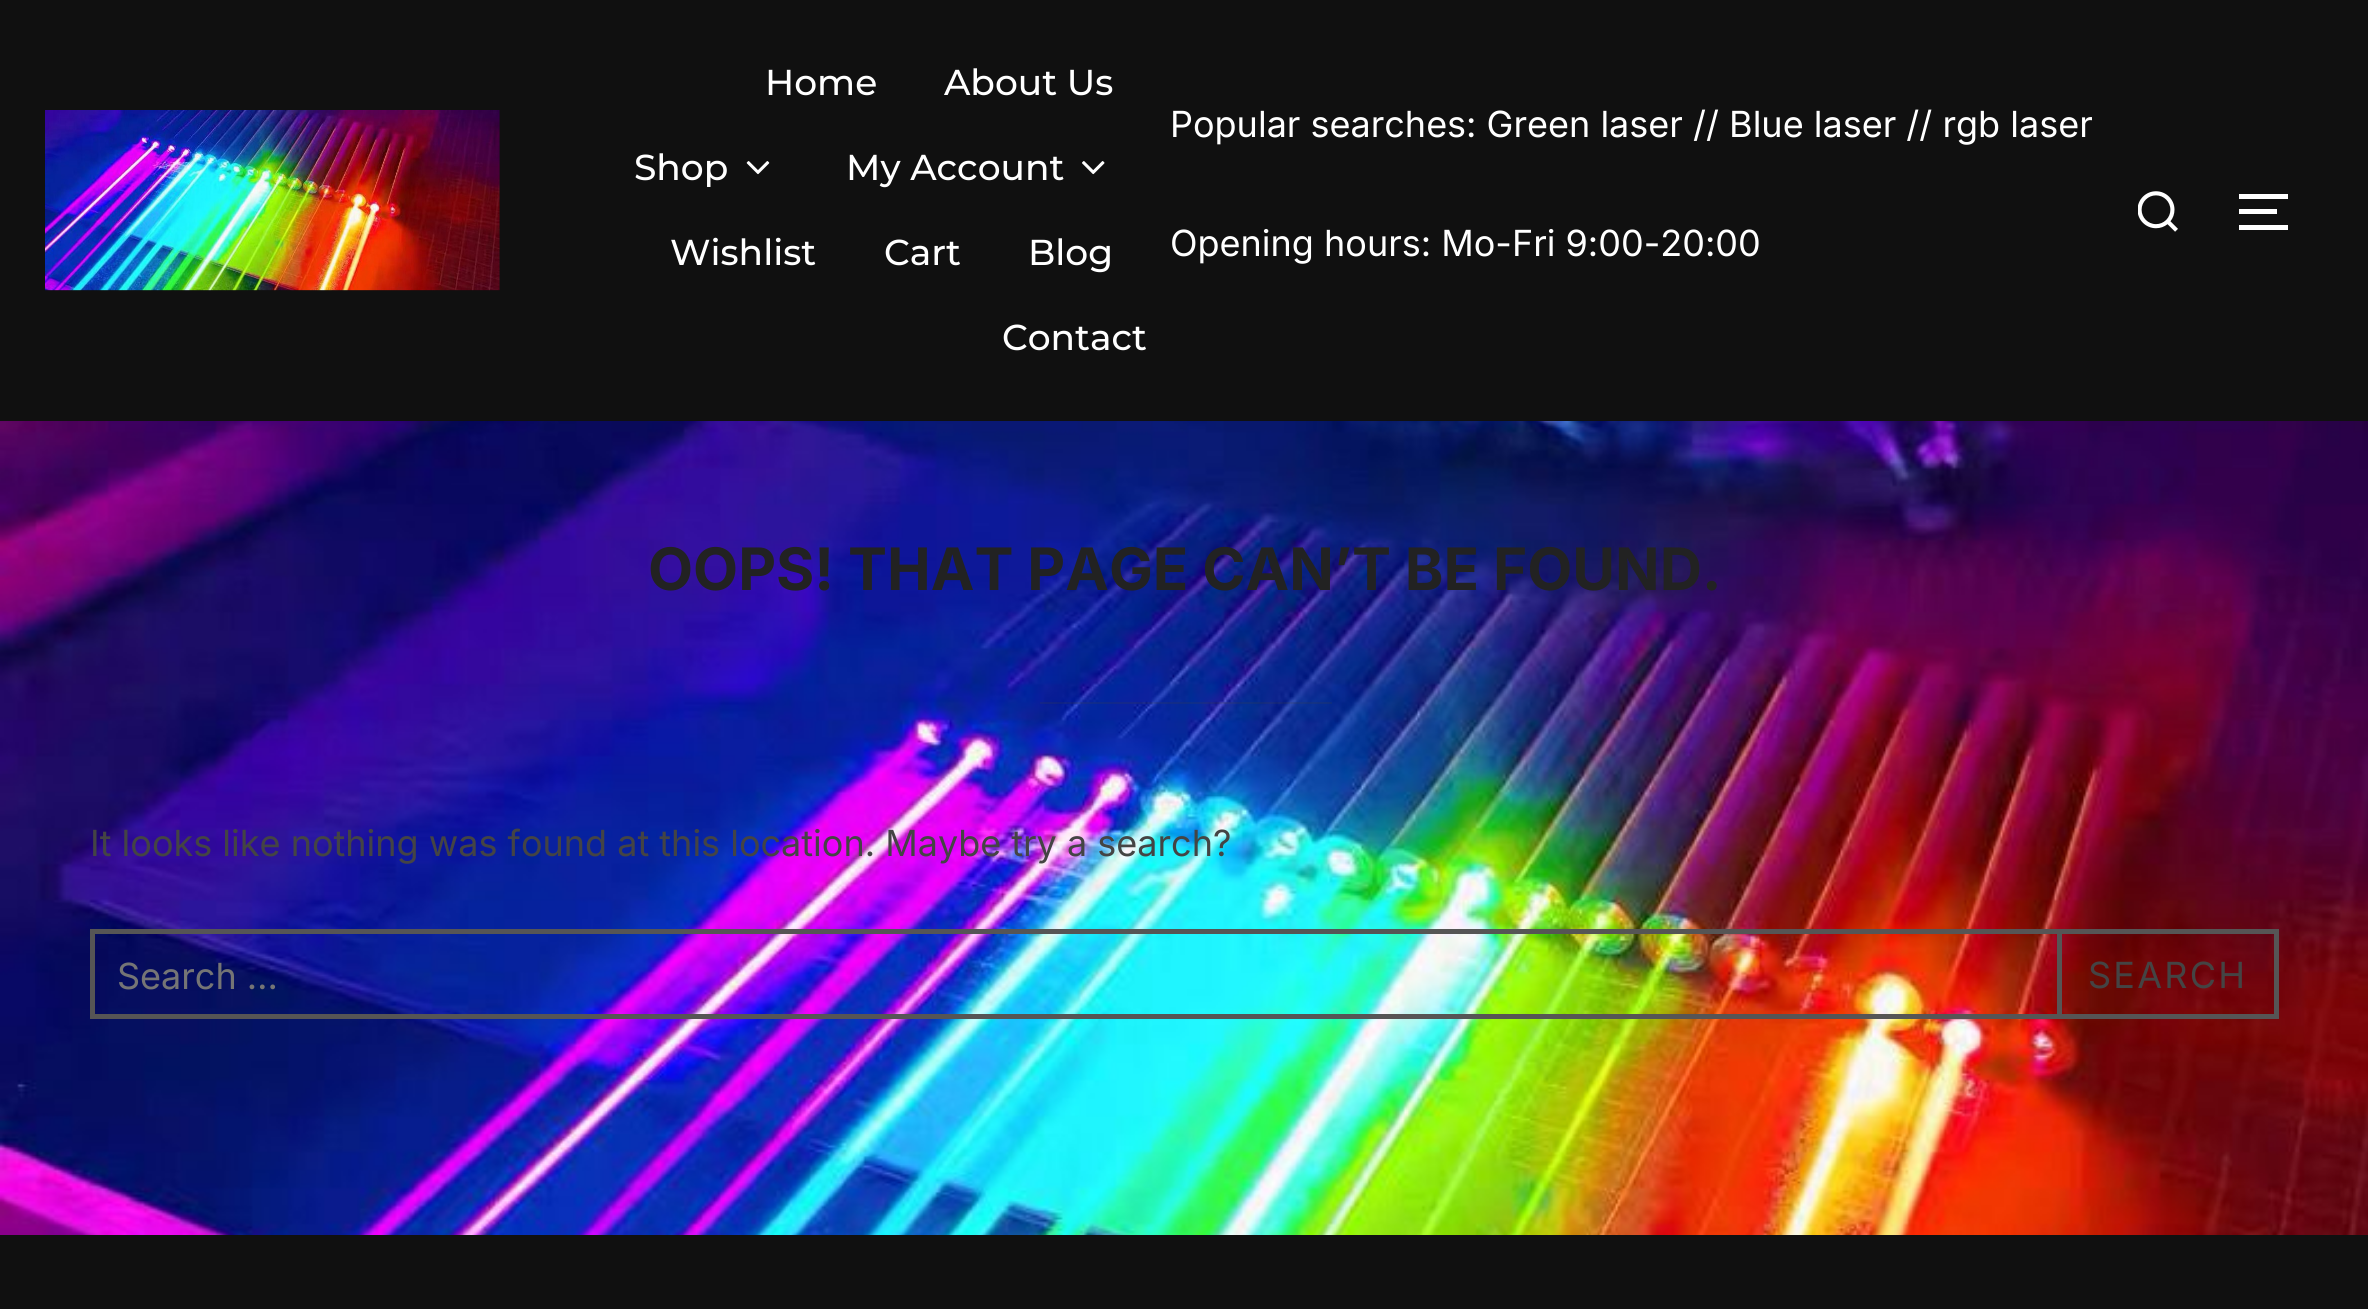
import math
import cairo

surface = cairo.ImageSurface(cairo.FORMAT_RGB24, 2368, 1309)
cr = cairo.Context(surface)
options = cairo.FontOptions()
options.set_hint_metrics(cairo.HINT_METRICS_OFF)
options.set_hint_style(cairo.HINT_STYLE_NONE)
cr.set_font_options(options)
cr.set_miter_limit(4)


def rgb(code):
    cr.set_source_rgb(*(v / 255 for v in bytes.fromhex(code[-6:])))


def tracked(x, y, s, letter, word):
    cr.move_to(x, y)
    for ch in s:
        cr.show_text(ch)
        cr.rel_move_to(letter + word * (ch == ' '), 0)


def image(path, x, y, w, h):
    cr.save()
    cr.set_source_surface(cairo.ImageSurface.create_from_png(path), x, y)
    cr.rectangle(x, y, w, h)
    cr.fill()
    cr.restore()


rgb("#ffffff")
cr.paint()
image("img/1.png", 0, 421, 2368, 814)
rgb("#101010")
cr.rectangle(0, 0, 2368, 421)
cr.fill()
image("img/2.png", 45, 110, 455, 181)
image("img/3.png", 746, 161, 24, 14)
image("img/4.png", 1082, 161, 23, 14)
image("img/5.png", 2138, 191, 40, 41)
rgb("#ffffff")
cr.rectangle(2239, 194, 49, 5)
cr.rectangle(2239, 209, 38, 5)
cr.rectangle(2239, 225, 49, 5)
cr.fill()
cr.set_source_rgba(0.267, 0.267, 0.267, 0.19)
cr.rectangle(1040, 702, 292, 2)
cr.fill()
cr.rectangle(92.5, 931.5, 2184, 85)
rgb("#565555")
cr.set_line_width(5)
cr.stroke()
cr.rectangle(2059.5, 931.5, 217, 85)
cr.stroke()
rgb("#101010")
cr.rectangle(0, 1235, 2368, 74)
cr.fill()
cr.select_font_face("Montserrat Medium")
cr.set_font_size(36)
rgb("#ffffff")
for x, y, s in [
    (765, 95, "Home"),
    (944, 95, "About Us"),
    (634, 180, "Shop"),
    (846, 180, "My Account"),
    (670, 265, "Wishlist"),
    (884, 265, "Cart"),
    (1028, 265, "Blog"),
    (1002, 350, "Contact"),
]:
    cr.move_to(x, y)
    cr.show_text(s)
cr.select_font_face("Inter")
cr.move_to(1170, 137)
cr.show_text("Popular searches: Green laser // Blue laser // rgb laser")
cr.move_to(1170, 256)
cr.show_text("Opening hours: Mo-Fri 9:00-20:00")
cr.select_font_face("Inter", cairo.FONT_SLANT_NORMAL, cairo.FONT_WEIGHT_BOLD)
cr.set_font_size(58.5)
rgb("#222222")
cr.move_to(648, 590)
cr.show_text("OOPS! THAT PAGE CAN’T BE FOUND.")
cr.select_font_face("Inter")
cr.set_font_size(36)
rgb("#444444")
cr.move_to(90, 856)
cr.show_text("It looks like nothing was found at this location. Maybe try a search?")
rgb("#757575")
cr.move_to(117, 989)
cr.show_text("Search …")
rgb("#444444")
tracked(2088, 988, "SEARCH", 2.25, 0)
surface.write_to_png("page.png")
